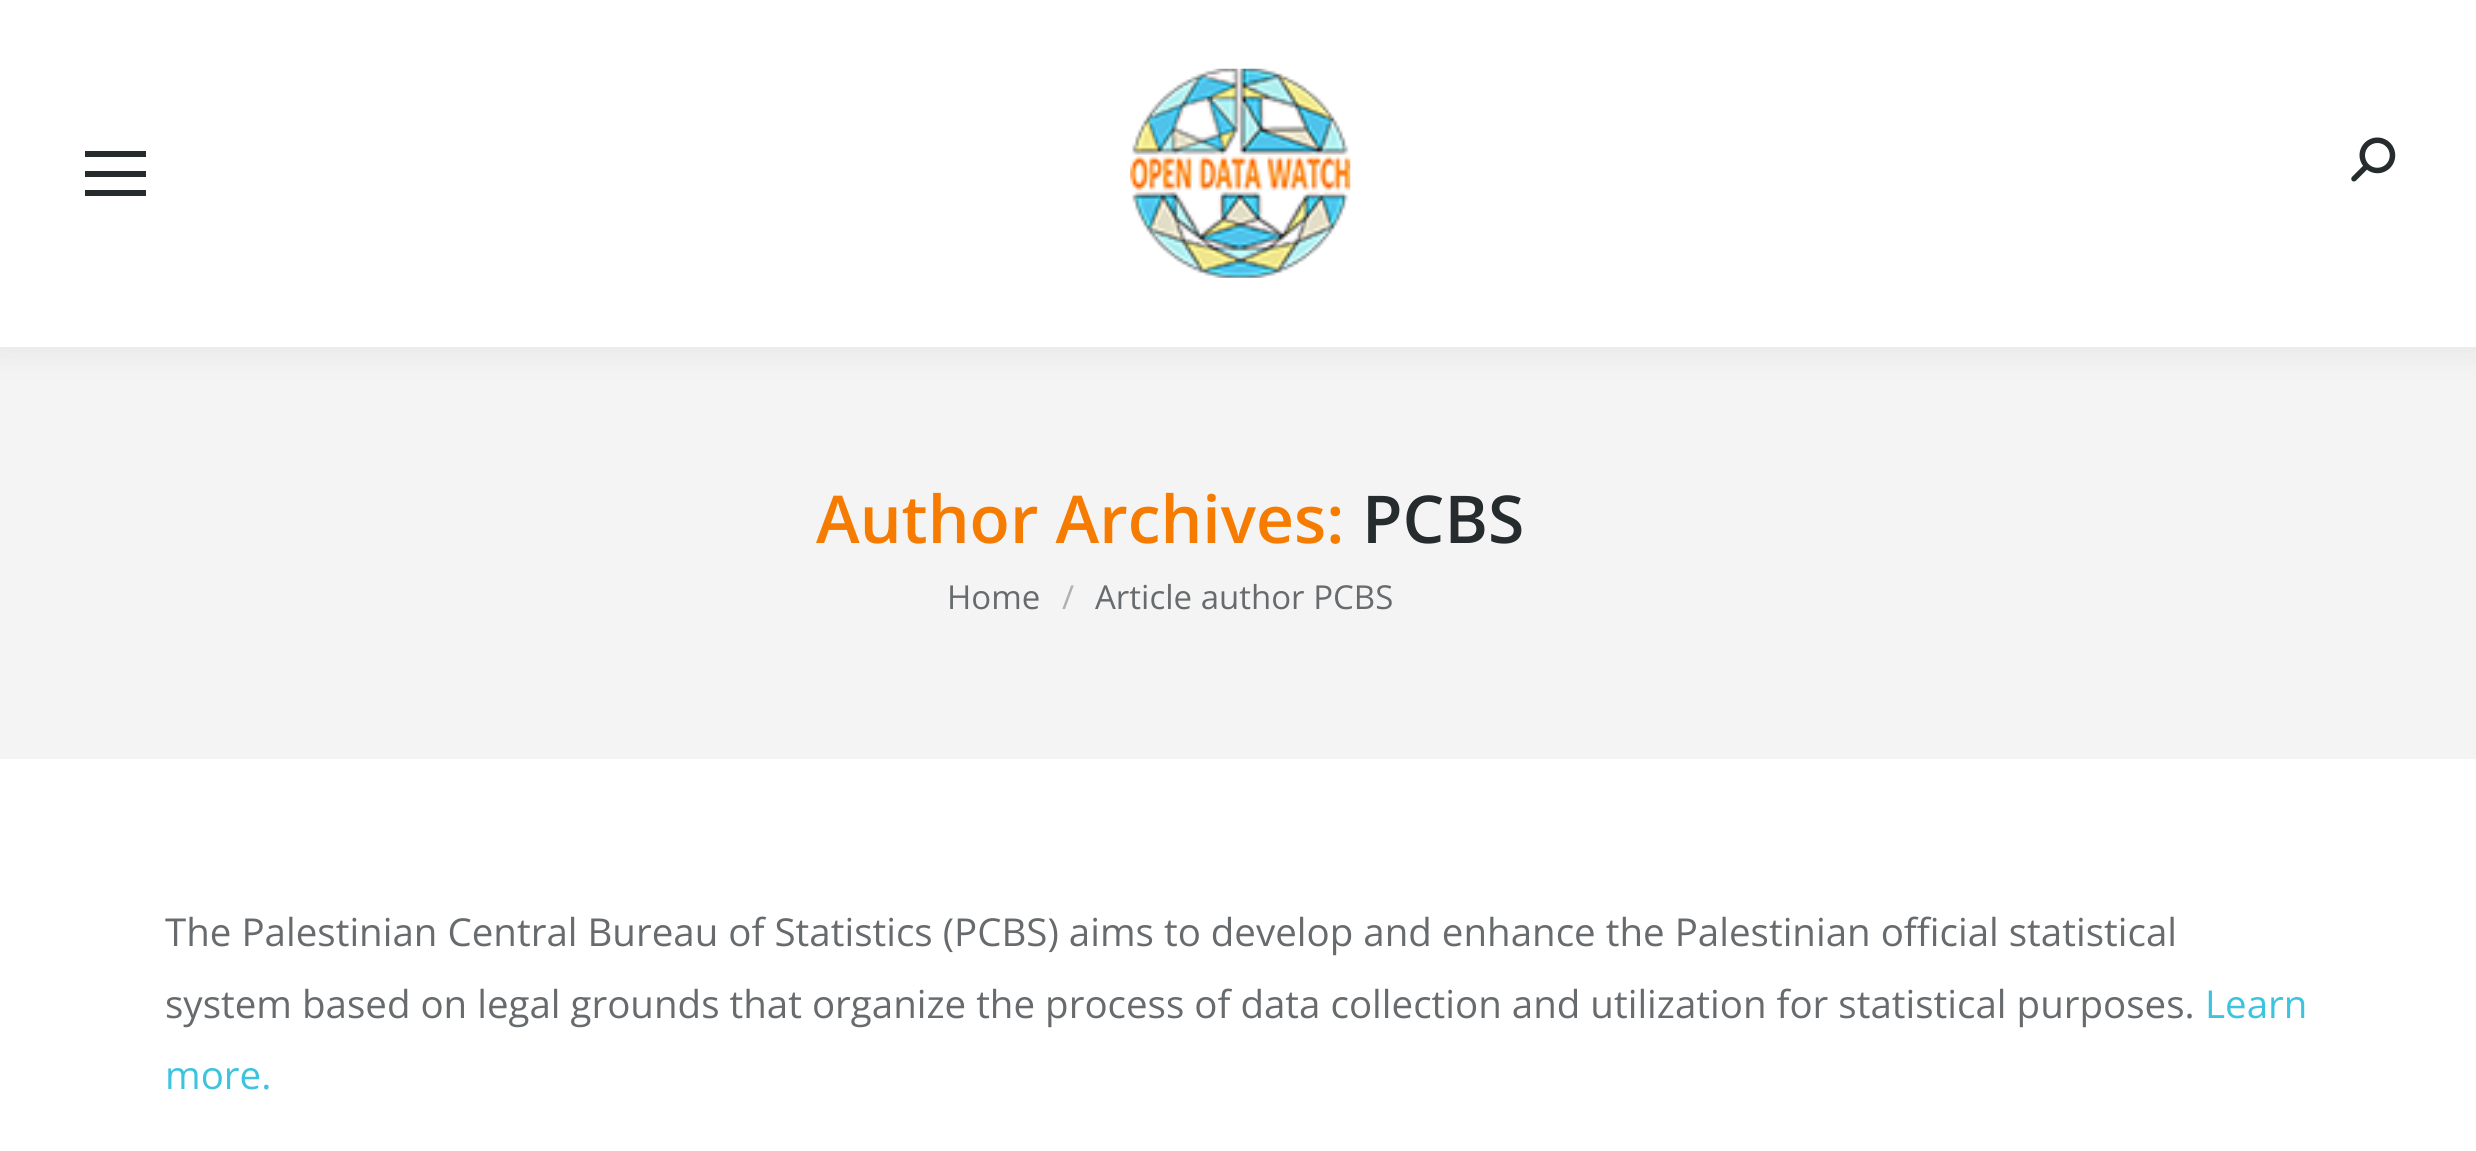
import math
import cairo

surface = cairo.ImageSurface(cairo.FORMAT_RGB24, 2476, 1151)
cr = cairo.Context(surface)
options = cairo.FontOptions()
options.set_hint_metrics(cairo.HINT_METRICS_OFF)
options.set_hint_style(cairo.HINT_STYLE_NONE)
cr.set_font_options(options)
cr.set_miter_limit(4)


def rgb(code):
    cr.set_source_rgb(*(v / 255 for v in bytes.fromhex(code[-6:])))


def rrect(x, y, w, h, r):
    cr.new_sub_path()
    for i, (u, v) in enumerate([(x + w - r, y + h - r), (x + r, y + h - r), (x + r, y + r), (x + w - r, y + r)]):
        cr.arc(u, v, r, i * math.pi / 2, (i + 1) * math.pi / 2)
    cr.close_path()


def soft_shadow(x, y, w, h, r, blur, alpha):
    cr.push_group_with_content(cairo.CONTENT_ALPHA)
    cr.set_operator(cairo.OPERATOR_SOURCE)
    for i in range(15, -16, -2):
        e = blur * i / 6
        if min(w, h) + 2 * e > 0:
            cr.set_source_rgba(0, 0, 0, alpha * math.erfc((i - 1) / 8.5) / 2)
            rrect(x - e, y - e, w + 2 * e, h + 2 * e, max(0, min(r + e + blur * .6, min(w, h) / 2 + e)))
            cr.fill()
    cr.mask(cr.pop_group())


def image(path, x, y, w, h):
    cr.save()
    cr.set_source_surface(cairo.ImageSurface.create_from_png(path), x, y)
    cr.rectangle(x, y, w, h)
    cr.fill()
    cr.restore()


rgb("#ffffff")
cr.paint()
rgb("#f4f4f4")
cr.rectangle(0, 347, 2476, 412)
cr.fill()
rgb("#000000")
soft_shadow(-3, -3, 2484, 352, 0, 20.5, 0.07)
for x, y, w, h, color in [
    (0, 0, 2476, 347, "#ffffff"),
    (85, 151, 61, 6, "#262b2e"),
    (85, 171, 61, 6, "#262b2e"),
    (85, 190, 61, 6, "#262b2e"),
]:
    rgb(color)
    cr.rectangle(x, y, w, h)
    cr.fill()
image("img/1.png", 1130, 68, 221, 210)
image("img/2.png", 2351, 137, 45, 45)
cr.select_font_face("Open Sans SemiBold")
cr.set_font_size(66)
rgb("#f57c00")
cr.move_to(816, 543)
cr.show_text("Author Archives:")
rgb("#262b2e")
cr.move_to(1362, 543)
cr.show_text("PCBS")
cr.select_font_face("Open Sans")
cr.set_font_size(33)
rgb("#676b6d")
cr.move_to(947, 609)
cr.show_text("Home")
rgb("#aeb0b1")
cr.move_to(1062, 609)
cr.show_text("/")
rgb("#676b6d")
cr.move_to(1095, 609)
cr.show_text("Article author PCBS")
cr.set_font_size(38.5)
cr.move_to(165, 946)
cr.show_text("The Palestinian Central Bureau of Statistics (PCBS) aims to develop and enhance the Palestinian official statistical")
cr.move_to(165, 1018)
cr.show_text("system based on legal grounds that organize the process of data collection and utilization for statistical purposes.")
rgb("#3cc3dd")
cr.move_to(2205, 1018)
cr.show_text("Learn")
cr.move_to(165, 1089)
cr.show_text("more.")
surface.write_to_png("page.png")
